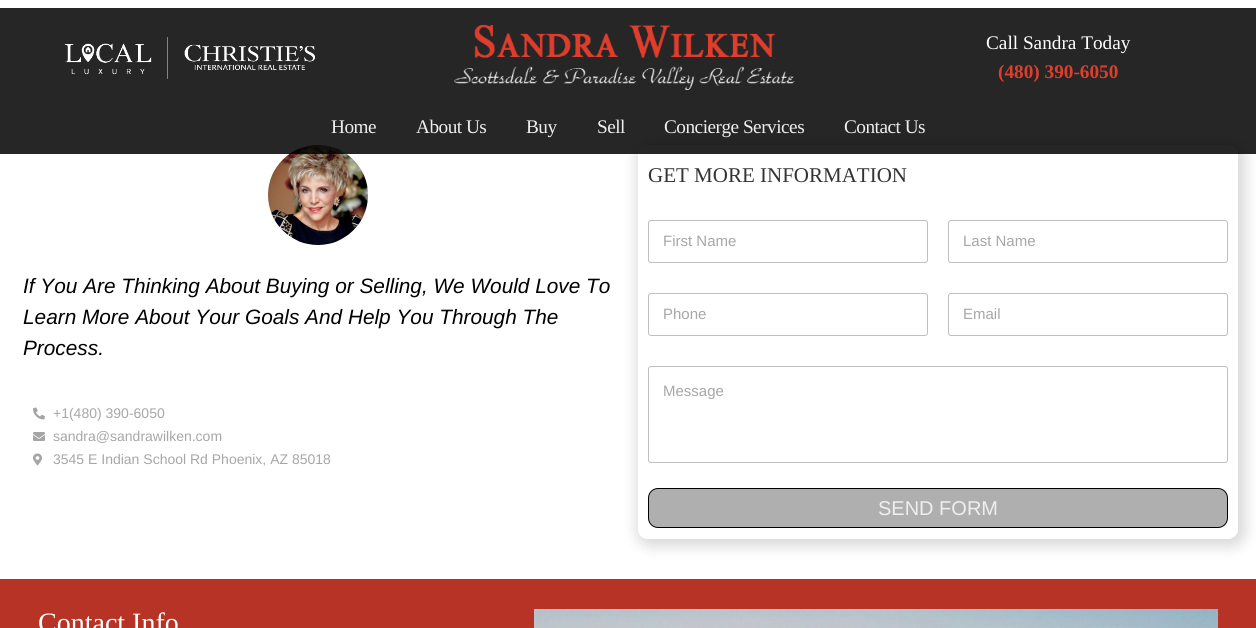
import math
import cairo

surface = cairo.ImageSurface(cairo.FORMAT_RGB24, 1256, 628)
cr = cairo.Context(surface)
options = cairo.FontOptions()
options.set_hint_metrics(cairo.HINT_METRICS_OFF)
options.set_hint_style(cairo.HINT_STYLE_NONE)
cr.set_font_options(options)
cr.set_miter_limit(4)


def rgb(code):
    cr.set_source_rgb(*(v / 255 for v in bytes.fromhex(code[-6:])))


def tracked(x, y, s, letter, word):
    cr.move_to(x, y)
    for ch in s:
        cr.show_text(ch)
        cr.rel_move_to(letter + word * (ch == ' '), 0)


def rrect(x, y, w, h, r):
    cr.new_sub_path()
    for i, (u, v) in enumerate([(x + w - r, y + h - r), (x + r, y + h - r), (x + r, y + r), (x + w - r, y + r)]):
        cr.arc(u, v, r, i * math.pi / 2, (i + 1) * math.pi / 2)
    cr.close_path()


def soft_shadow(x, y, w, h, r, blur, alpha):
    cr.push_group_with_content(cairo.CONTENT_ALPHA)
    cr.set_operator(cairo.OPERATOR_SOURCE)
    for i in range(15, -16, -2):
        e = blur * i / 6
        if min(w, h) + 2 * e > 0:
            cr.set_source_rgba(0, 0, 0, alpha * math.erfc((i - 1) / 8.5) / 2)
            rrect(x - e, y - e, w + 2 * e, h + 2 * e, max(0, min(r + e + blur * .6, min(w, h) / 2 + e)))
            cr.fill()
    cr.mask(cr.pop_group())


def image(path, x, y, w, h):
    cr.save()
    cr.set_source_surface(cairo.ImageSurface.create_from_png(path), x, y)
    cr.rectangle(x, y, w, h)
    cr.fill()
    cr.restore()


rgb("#ffffff")
cr.paint()
image("img/3.png", 268, 145, 100, 100)
cr.save()
cr.set_fill_rule(cairo.FILL_RULE_EVEN_ODD)
cr.new_path()
cr.move_to(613, 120)
cr.line_to(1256, 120)
cr.line_to(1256, 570)
cr.line_to(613, 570)
cr.close_path()
cr.move_to(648, 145)
cr.line_to(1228, 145)
cr.curve_to(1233.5, 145, 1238, 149.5, 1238, 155)
cr.line_to(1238, 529)
cr.curve_to(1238, 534.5, 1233.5, 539, 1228, 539)
cr.line_to(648, 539)
cr.curve_to(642.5, 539, 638, 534.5, 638, 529)
cr.line_to(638, 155)
cr.curve_to(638, 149.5, 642.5, 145, 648, 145)
cr.close_path()
cr.clip()
rgb("#000000")
soft_shadow(637, 144, 608, 402, 14, 7.5, 0.16)
cr.restore()
cr.set_source_rgba(0, 0, 0, 0.85)
cr.rectangle(0, 8, 1256, 146)
cr.fill()
image("img/1.png", 64, 37, 251, 42)
image("img/2.png", 454, 25, 341, 65)
image("img/4.png", 33, 407, 12, 13)
image("img/5.png", 33, 432, 12, 9)
image("img/6.png", 33, 453, 9, 13)
rrect(648.5, 220.5, 279, 42, 2.5)
rgb("#bfbfbf")
cr.set_line_width(1)
cr.stroke()
rrect(948.5, 220.5, 279, 42, 2.5)
cr.stroke()
rrect(648.5, 293.5, 279, 42, 2.5)
cr.stroke()
rrect(948.5, 293.5, 279, 42, 2.5)
cr.stroke()
rrect(648.5, 366.5, 579, 96, 2.5)
cr.stroke()
rgb("#afafaf")
rrect(648.5, 488.5, 579, 39, 9.5)
cr.fill_preserve()
rgb("#000000")
cr.stroke()
rgb("#b63326")
cr.rectangle(0, 579, 1256, 49)
cr.fill()
image("img/7.png", 534, 609, 684, 19)
cr.select_font_face("Liberation Serif")
cr.set_font_size(19.25)
rgb("#ffffff")
cr.move_to(986, 49)
cr.show_text("Call Sandra Today")
cr.select_font_face("Liberation Serif", cairo.FONT_SLANT_NORMAL, cairo.FONT_WEIGHT_BOLD)
rgb("#e03e2d")
cr.move_to(998, 78)
cr.show_text("(480) 390-6050")
cr.select_font_face("Liberation Serif")
rgb("#eeeeee")
for x, y, s in [
    (331, 133, "Home"),
    (416, 133, "About Us"),
    (526, 133, "Buy"),
    (597, 133, "Sell"),
    (664, 133, "Concierge Services"),
    (844, 133, "Contact Us"),
]:
    tracked(x, y, s, -0.5, 0)
cr.select_font_face("Liberation Sans", cairo.FONT_SLANT_ITALIC)
cr.set_font_size(20.8)
rgb("#000000")
for x, y, s in [
    (23, 293, "If You Are Thinking About Buying or Selling, We Would Love To"),
    (23, 324, "Learn More About Your Goals And Help You Through The"),
    (23, 355, "Process."),
]:
    cr.move_to(x, y)
    cr.show_text(s)
cr.select_font_face("Liberation Sans")
cr.set_font_size(14)
rgb("#a7a7a7")
for x, y, s in [
    (53, 418, "+1(480) 390-6050"),
    (53, 441, "sandra@sandrawilken.com"),
    (53, 464, "3545 E Indian School Rd Phoenix, AZ 85018"),
]:
    cr.move_to(x, y)
    cr.show_text(s)
cr.select_font_face("Liberation Serif")
cr.set_font_size(21)
rgb("#333333")
cr.move_to(648, 182)
cr.show_text("GET MORE INFORMATION")
cr.select_font_face("Liberation Sans")
cr.set_font_size(15)
rgb("#a7a7a7")
for x, y, s in [
    (663, 246, "First Name"),
    (963, 246, "Last Name"),
    (663, 319, "Phone"),
    (963, 319, "Email"),
    (663, 396, "Message"),
]:
    cr.move_to(x, y)
    cr.show_text(s)
cr.set_font_size(20)
rgb("#eeeeee")
cr.move_to(878, 515)
cr.show_text("SEND FORM")
cr.select_font_face("Liberation Serif")
cr.set_font_size(28)
rgb("#ffffff")
cr.move_to(38, 632)
cr.show_text("Contact Info")
surface.write_to_png("page.png")
